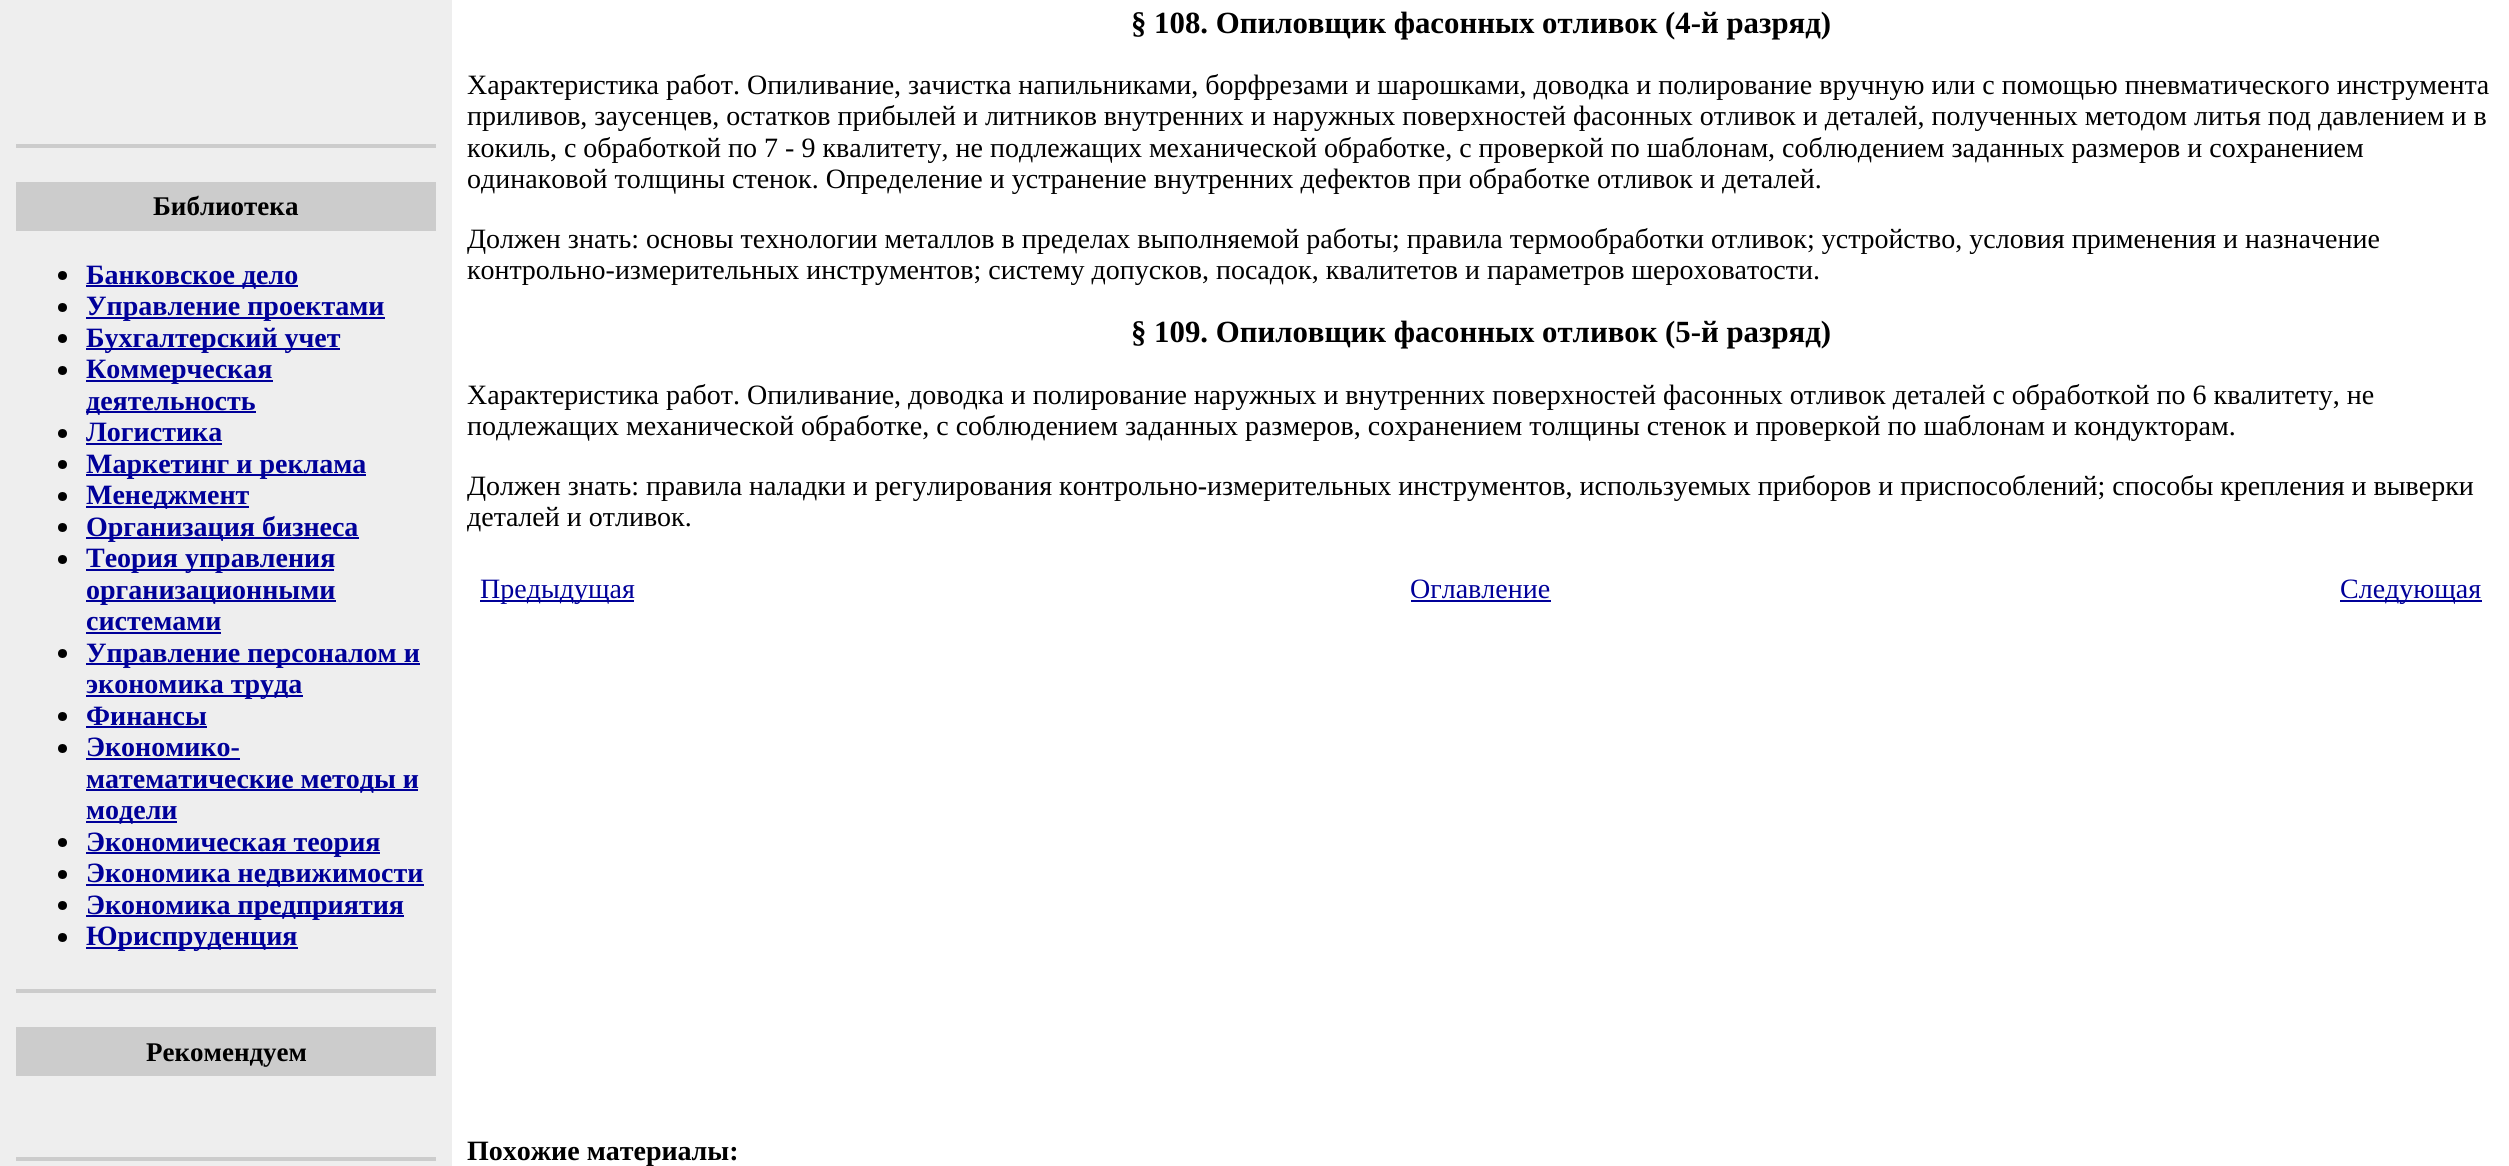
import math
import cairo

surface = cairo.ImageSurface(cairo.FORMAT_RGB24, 2509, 1166)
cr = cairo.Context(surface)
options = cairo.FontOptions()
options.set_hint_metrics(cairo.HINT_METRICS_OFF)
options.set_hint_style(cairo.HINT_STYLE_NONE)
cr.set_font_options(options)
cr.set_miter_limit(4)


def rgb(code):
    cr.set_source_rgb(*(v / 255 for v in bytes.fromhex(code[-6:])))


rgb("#ffffff")
cr.paint()
for x, y, w, h, color in [
    (0, 0, 452, 1166, "#eeeeee"),
    (16, 144, 420, 4, "#cccccc"),
    (16, 989, 420, 4, "#cccccc"),
    (16, 182, 420, 49, "#cccccc"),
]:
    rgb(color)
    cr.rectangle(x, y, w, h)
    cr.fill()
rgb("#000000")
cr.arc(62.5, 275.5, 4.5, 0, 2 * math.pi)
cr.fill()
rgb("#000099")
cr.rectangle(86, 285, 212, 2)
cr.fill()
rgb("#000000")
cr.arc(62.5, 307.5, 4.5, 0, 2 * math.pi)
cr.fill()
rgb("#000099")
cr.rectangle(86, 317, 299, 2)
cr.fill()
rgb("#000000")
cr.arc(62.5, 338.5, 4.5, 0, 2 * math.pi)
cr.fill()
rgb("#000099")
cr.rectangle(86, 348, 254, 2)
cr.fill()
rgb("#000000")
cr.arc(62.5, 370.5, 4.5, 0, 2 * math.pi)
cr.fill()
rgb("#000099")
cr.rectangle(86, 380, 187, 2)
cr.fill()
cr.rectangle(86, 411, 170, 2)
cr.fill()
rgb("#000000")
cr.arc(62.5, 433.5, 4.5, 0, 2 * math.pi)
cr.fill()
rgb("#000099")
cr.rectangle(86, 443, 136, 2)
cr.fill()
rgb("#000000")
cr.arc(62.5, 464.5, 4.5, 0, 2 * math.pi)
cr.fill()
rgb("#000099")
cr.rectangle(86, 474, 280, 2)
cr.fill()
rgb("#000000")
cr.arc(62.5, 496.5, 4.5, 0, 2 * math.pi)
cr.fill()
rgb("#000099")
cr.rectangle(86, 506, 163, 2)
cr.fill()
rgb("#000000")
cr.arc(62.5, 527.5, 4.5, 0, 2 * math.pi)
cr.fill()
rgb("#000099")
cr.rectangle(86, 537, 273, 2)
cr.fill()
rgb("#000000")
cr.arc(62.5, 559.5, 4.5, 0, 2 * math.pi)
cr.fill()
for x, y, w, h, color in [
    (86, 569, 248, 2, "#000099"),
    (86, 600, 250, 2, "#000099"),
    (86, 632, 135, 2, "#000099"),
]:
    rgb(color)
    cr.rectangle(x, y, w, h)
    cr.fill()
rgb("#000000")
cr.arc(62.5, 653.5, 4.5, 0, 2 * math.pi)
cr.fill()
rgb("#000099")
cr.rectangle(86, 663, 334, 2)
cr.fill()
cr.rectangle(86, 695, 217, 2)
cr.fill()
rgb("#000000")
cr.arc(62.5, 716.5, 4.5, 0, 2 * math.pi)
cr.fill()
rgb("#000099")
cr.rectangle(86, 726, 121, 2)
cr.fill()
rgb("#000000")
cr.arc(62.5, 748.5, 4.5, 0, 2 * math.pi)
cr.fill()
for x, y, w, h, color in [
    (86, 758, 154, 2, "#000099"),
    (86, 789, 332, 2, "#000099"),
    (86, 821, 91, 2, "#000099"),
]:
    rgb(color)
    cr.rectangle(x, y, w, h)
    cr.fill()
rgb("#000000")
cr.arc(62.5, 842.5, 4.5, 0, 2 * math.pi)
cr.fill()
rgb("#000099")
cr.rectangle(86, 852, 294, 2)
cr.fill()
rgb("#000000")
cr.arc(62.5, 874.5, 4.5, 0, 2 * math.pi)
cr.fill()
rgb("#000099")
cr.rectangle(86, 884, 338, 2)
cr.fill()
rgb("#000000")
cr.arc(62.5, 905.5, 4.5, 0, 2 * math.pi)
cr.fill()
rgb("#000099")
cr.rectangle(86, 915, 318, 2)
cr.fill()
rgb("#000000")
cr.arc(62.5, 937.5, 4.5, 0, 2 * math.pi)
cr.fill()
for x, y, w, h, color in [
    (86, 947, 212, 2, "#000099"),
    (16, 1157, 420, 4, "#cccccc"),
    (16, 1027, 420, 49, "#cccccc"),
    (480, 600, 154, 2, "#000099"),
    (1411, 600, 140, 2, "#000099"),
    (2340, 600, 142, 2, "#000099"),
]:
    rgb(color)
    cr.rectangle(x, y, w, h)
    cr.fill()
cr.select_font_face("Liberation Serif", cairo.FONT_SLANT_NORMAL, cairo.FONT_WEIGHT_BOLD)
cr.set_font_size(27)
rgb("#000000")
cr.move_to(153, 215)
cr.show_text("Библиотека")
cr.set_font_size(28)
rgb("#000099")
for x, y, s in [
    (86, 284, "Банковское дело"),
    (86, 315, "Управление проектами"),
    (86, 347, "Бухгалтерский учет"),
    (86, 378, "Коммерческая"),
    (86, 410, "деятельность"),
    (86, 441, "Логистика"),
    (86, 473, "Маркетинг и реклама"),
    (86, 504, "Менеджмент"),
    (86, 536, "Организация бизнеса"),
    (86, 567, "Теория управления"),
    (86, 599, "организационными"),
    (86, 630, "системами"),
    (86, 662, "Управление персоналом и"),
    (86, 693, "экономика труда"),
    (86, 725, "Финансы"),
    (86, 756, "Экономико-"),
    (86, 788, "математические методы и"),
    (86, 819, "модели"),
    (86, 851, "Экономическая теория"),
    (86, 882, "Экономика недвижимости"),
    (86, 914, "Экономика предприятия"),
    (86, 945, "Юриспруденция"),
]:
    cr.move_to(x, y)
    cr.show_text(s)
cr.set_font_size(27)
rgb("#000000")
cr.move_to(146, 1061)
cr.show_text("Рекомендуем")
cr.set_font_size(30.8)
cr.move_to(1131, 33)
cr.show_text("§ 108. Опиловщик фасонных отливок (4-й разряд)")
cr.select_font_face("Liberation Serif")
cr.set_font_size(28)
for x, y, s in [
    (467, 94, "Характеристика работ. Опиливание, зачистка напильниками, борфрезами и шарошками, доводка и полирование вручную или с помощью пневматического инструмента"),
    (467, 125, "приливов, заусенцев, остатков прибылей и литников внутренних и наружных поверхностей фасонных отливок и деталей, полученных методом литья под давлением и в"),
    (467, 157, "кокиль, с обработкой по 7 - 9 квалитету, не подлежащих механической обработке, с проверкой по шаблонам, соблюдением заданных размеров и сохранением"),
    (467, 188, "одинаковой толщины стенок. Определение и устранение внутренних дефектов при обработке отливок и деталей."),
    (467, 248, "Должен знать: основы технологии металлов в пределах выполняемой работы; правила термообработки отливок; устройство, условия применения и назначение"),
    (467, 279, "контрольно-измерительных инструментов; систему допусков, посадок, квалитетов и параметров шероховатости."),
]:
    cr.move_to(x, y)
    cr.show_text(s)
cr.select_font_face("Liberation Serif", cairo.FONT_SLANT_NORMAL, cairo.FONT_WEIGHT_BOLD)
cr.set_font_size(30.8)
cr.move_to(1131, 342)
cr.show_text("§ 109. Опиловщик фасонных отливок (5-й разряд)")
cr.select_font_face("Liberation Serif")
cr.set_font_size(28)
for x, y, s in [
    (467, 404, "Характеристика работ. Опиливание, доводка и полирование наружных и внутренних поверхностей фасонных отливок деталей с обработкой по 6 квалитету, не"),
    (467, 435, "подлежащих механической обработке, с соблюдением заданных размеров, сохранением толщины стенок и проверкой по шаблонам и кондукторам."),
    (467, 495, "Должен знать: правила наладки и регулирования контрольно-измерительных инструментов, используемых приборов и приспособлений; способы крепления и выверки"),
    (467, 526, "деталей и отливок."),
]:
    cr.move_to(x, y)
    cr.show_text(s)
rgb("#000099")
for x, y, s in [
    (480, 598, "Предыдущая"),
    (1410, 598, "Оглавление"),
    (2340, 598, "Следующая"),
]:
    cr.move_to(x, y)
    cr.show_text(s)
cr.select_font_face("Liberation Serif", cairo.FONT_SLANT_NORMAL, cairo.FONT_WEIGHT_BOLD)
rgb("#000000")
cr.move_to(467, 1160)
cr.show_text("Похожие материалы:")
surface.write_to_png("page.png")
